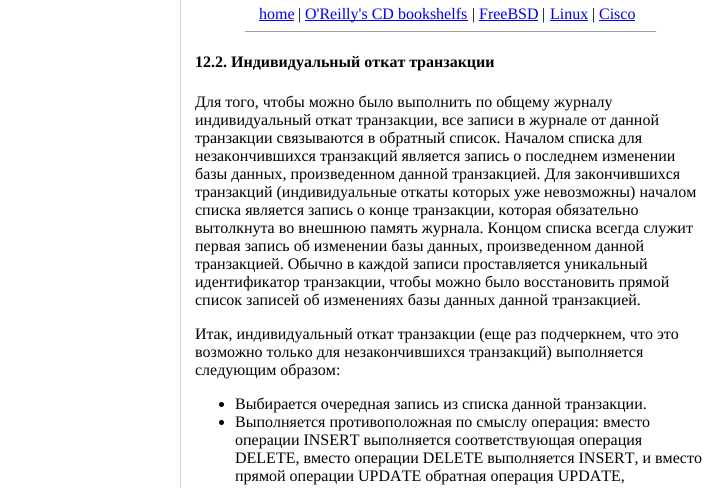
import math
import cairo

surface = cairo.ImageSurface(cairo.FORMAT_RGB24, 712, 488)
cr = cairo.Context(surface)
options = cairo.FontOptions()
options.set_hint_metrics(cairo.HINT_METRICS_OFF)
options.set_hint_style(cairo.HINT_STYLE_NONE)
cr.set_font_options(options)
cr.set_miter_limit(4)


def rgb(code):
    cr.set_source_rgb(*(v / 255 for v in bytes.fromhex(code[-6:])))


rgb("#ffffff")
cr.paint()
for x, y, w, h, color in [
    (180, 0, 1, 488, "#d3d3d3"),
    (259, 20, 35, 1, "#0000ee"),
    (305, 20, 163, 1, "#0000ee"),
    (479, 20, 59, 1, "#0000ee"),
    (550, 20, 38, 1, "#0000ee"),
    (599, 20, 36, 1, "#0000ee"),
    (245, 31, 412, 1, "#9f9f9f"),
    (656, 31, 1, 1, "#eeeeee"),
]:
    rgb(color)
    cr.rectangle(x, y, w, h)
    cr.fill()
rgb("#000000")
cr.arc(221.5, 404.5, 2.5, 0, 2 * math.pi)
cr.fill()
cr.arc(221.5, 422.5, 2.5, 0, 2 * math.pi)
cr.fill()
cr.select_font_face("Liberation Serif")
cr.set_font_size(16)
rgb("#0000ee")
cr.move_to(259, 19)
cr.show_text("home")
rgb("#000000")
cr.move_to(298, 19)
cr.show_text("|")
rgb("#0000ee")
cr.move_to(305, 19)
cr.show_text("O'Reilly's CD bookshelfs")
rgb("#000000")
cr.move_to(472, 19)
cr.show_text("|")
rgb("#0000ee")
cr.move_to(479, 19)
cr.show_text("FreeBSD")
rgb("#000000")
cr.move_to(542, 19)
cr.show_text("|")
rgb("#0000ee")
cr.move_to(550, 19)
cr.show_text("Linux")
rgb("#000000")
cr.move_to(592, 19)
cr.show_text("|")
rgb("#0000ee")
cr.move_to(599, 19)
cr.show_text("Cisco")
cr.select_font_face("Liberation Serif", cairo.FONT_SLANT_NORMAL, cairo.FONT_WEIGHT_BOLD)
rgb("#000000")
cr.move_to(195, 67)
cr.show_text("12.2. Индивидуальный откат транзакции")
cr.select_font_face("Liberation Serif")
for x, y, s in [
    (195, 107, "Для того, чтобы можно было выполнить по общему журналу"),
    (195, 125, "индивидуальный откат транзакции, все записи в журнале от данной"),
    (195, 143, "транзакции связываются в обратный список. Началом списка для"),
    (195, 161, "незакончившихся транзакций является запись о последнем изменении"),
    (195, 179, "базы данных, произведенном данной транзакцией. Для закончившихся"),
    (195, 197, "транзакций (индивидуальные откаты которых уже невозможны) началом"),
    (195, 215, "списка является запись о конце транзакции, которая обязательно"),
    (195, 233, "вытолкнута во внешнюю память журнала. Концом списка всегда служит"),
    (195, 251, "первая запись об изменении базы данных, произведенном данной"),
    (195, 269, "транзакцией. Обычно в каждой записи проставляется уникальный"),
    (195, 287, "идентификатор транзакции, чтобы можно было восстановить прямой"),
    (195, 305, "список записей об изменениях базы данных данной транзакцией."),
    (195, 339, "Итак, индивидуальный откат транзакции (еще раз подчеркнем, что это"),
    (195, 357, "возможно только для незакончившихся транзакций) выполняется"),
    (195, 375, "следующим образом:"),
    (235, 409, "Выбирается очередная запись из списка данной транзакции."),
    (235, 427, "Выполняется противоположная по смыслу операция: вместо"),
    (235, 445, "операции INSERT выполняется соответствующая операция"),
    (235, 463, "DELETE, вместо операции DELETE выполняется INSERT, и вместо"),
    (235, 481, "прямой операции UPDATE обратная операция UPDATE,"),
]:
    cr.move_to(x, y)
    cr.show_text(s)
surface.write_to_png("page.png")
